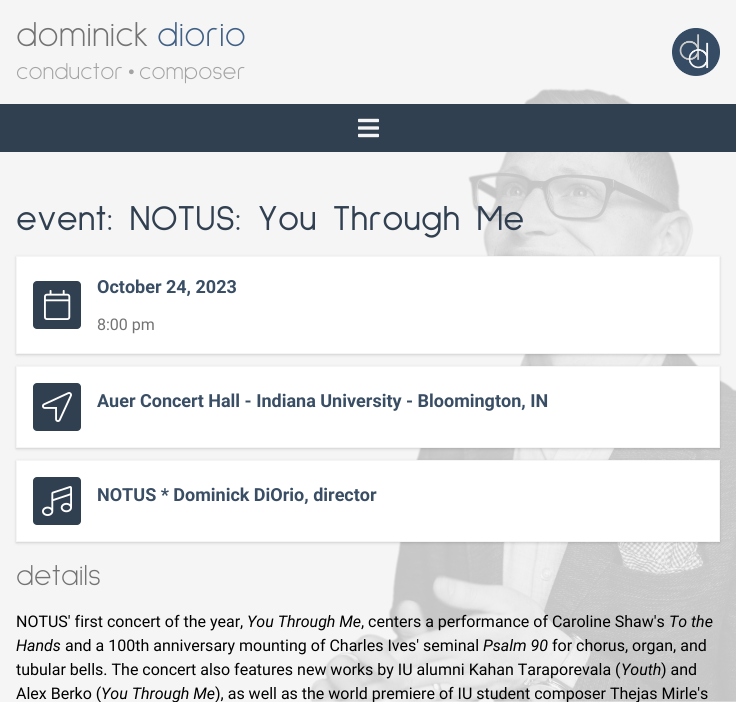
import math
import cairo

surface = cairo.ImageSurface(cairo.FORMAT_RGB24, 736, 702)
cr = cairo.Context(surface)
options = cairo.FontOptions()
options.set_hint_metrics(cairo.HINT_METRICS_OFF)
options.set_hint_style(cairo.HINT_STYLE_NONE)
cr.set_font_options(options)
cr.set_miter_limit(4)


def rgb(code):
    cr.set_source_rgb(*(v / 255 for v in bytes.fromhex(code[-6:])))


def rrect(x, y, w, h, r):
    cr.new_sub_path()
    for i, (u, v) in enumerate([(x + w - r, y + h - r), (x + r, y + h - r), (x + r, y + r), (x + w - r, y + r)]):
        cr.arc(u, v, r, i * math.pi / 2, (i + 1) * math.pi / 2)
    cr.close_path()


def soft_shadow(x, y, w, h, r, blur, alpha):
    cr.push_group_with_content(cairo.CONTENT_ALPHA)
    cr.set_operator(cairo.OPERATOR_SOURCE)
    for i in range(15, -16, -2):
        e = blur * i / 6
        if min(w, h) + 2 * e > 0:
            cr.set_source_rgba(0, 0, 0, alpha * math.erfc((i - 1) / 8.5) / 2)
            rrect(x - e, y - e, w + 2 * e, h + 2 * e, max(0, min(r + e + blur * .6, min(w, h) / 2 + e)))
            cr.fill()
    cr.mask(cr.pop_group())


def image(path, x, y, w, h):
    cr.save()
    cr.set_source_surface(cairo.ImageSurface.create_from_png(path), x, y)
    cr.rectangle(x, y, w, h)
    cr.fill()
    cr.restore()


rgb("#f5f5f5")
cr.paint()
image("img/1.png", 672, 28, 48, 48)
image("img/2.png", 310, 88, 426, 614)
rgb("#314051")
cr.rectangle(0, 104, 736, 48)
cr.fill()
image("img/3.png", 358, 118, 21, 20)
rgb("#000000")
soft_shadow(16, 257, 704, 98, 0, 1, 0.06)
soft_shadow(16, 257, 704, 98, 0, 1.5, 0.1)
rgb("#ffffff")
cr.rectangle(16.5, 256.5, 703, 97)
cr.fill_preserve()
rgb("#f5f5f5")
cr.set_line_width(1)
cr.stroke()
rgb("#314051")
rrect(33, 281, 48, 48, 4)
cr.fill()
image("img/4.png", 44, 290, 27, 30)
rgb("#000000")
soft_shadow(16, 367, 704, 82, 0, 1, 0.06)
soft_shadow(16, 367, 704, 82, 0, 1.5, 0.1)
rgb("#ffffff")
cr.rectangle(16.5, 366.5, 703, 81)
cr.fill_preserve()
rgb("#f5f5f5")
cr.stroke()
rgb("#314051")
rrect(33, 383, 48, 48, 4)
cr.fill()
image("img/5.png", 42, 392, 30, 30)
rgb("#000000")
soft_shadow(16, 461, 704, 82, 0, 1, 0.06)
soft_shadow(16, 461, 704, 82, 0, 1.5, 0.1)
rgb("#ffffff")
cr.rectangle(16.5, 460.5, 703, 81)
cr.fill_preserve()
rgb("#f5f5f5")
cr.stroke()
rgb("#314051")
rrect(33, 477, 48, 48, 4)
cr.fill()
image("img/6.png", 42, 486, 30, 30)
cr.select_font_face("Sulphur Point Light")
cr.set_font_size(36)
rgb("#737373")
cr.move_to(16, 46)
cr.show_text("dominick")
rgb("#416085")
cr.move_to(157, 46)
cr.show_text("diorio")
cr.set_font_size(24)
rgb("#a3a3a3")
for x, y, s in [
    (16, 79, "conductor"),
    (128, 79, "•"),
    (139, 79, "composer"),
]:
    cr.move_to(x, y)
    cr.show_text(s)
cr.select_font_face("Sulphur Point")
cr.set_font_size(36)
rgb("#314051")
cr.move_to(16, 230)
cr.show_text("event: NOTUS: You Through Me")
cr.select_font_face("Roboto", cairo.FONT_SLANT_NORMAL, cairo.FONT_WEIGHT_BOLD)
cr.set_font_size(18)
rgb("#394d64")
cr.move_to(97, 293)
cr.show_text("October 24, 2023")
cr.select_font_face("Roboto")
cr.set_font_size(16)
rgb("#737373")
cr.move_to(97, 330)
cr.show_text("8:00 pm")
cr.select_font_face("Roboto", cairo.FONT_SLANT_NORMAL, cairo.FONT_WEIGHT_BOLD)
cr.set_font_size(18)
rgb("#394d64")
cr.move_to(97, 407)
cr.show_text("Auer Concert Hall - Indiana University - Bloomington, IN")
cr.move_to(97, 501)
cr.show_text("NOTUS * Dominick DiOrio, director")
cr.select_font_face("Sulphur Point Light")
cr.set_font_size(30)
rgb("#737373")
cr.move_to(16, 585)
cr.show_text("details")
cr.select_font_face("Roboto")
cr.set_font_size(16)
rgb("#000000")
cr.move_to(16, 627)
cr.show_text("NOTUS' first concert of the year,")
cr.select_font_face("Roboto", cairo.FONT_SLANT_ITALIC)
cr.move_to(247, 627)
cr.show_text("You Through Me")
cr.select_font_face("Roboto")
cr.move_to(361, 627)
cr.show_text(", centers a performance of Caroline Shaw's")
cr.select_font_face("Roboto", cairo.FONT_SLANT_ITALIC)
cr.move_to(669, 627)
cr.show_text("To the")
cr.move_to(16, 651)
cr.show_text("Hands")
cr.select_font_face("Roboto")
cr.move_to(65, 651)
cr.show_text("and a 100th anniversary mounting of Charles Ives' seminal")
cr.select_font_face("Roboto", cairo.FONT_SLANT_ITALIC)
cr.move_to(483, 651)
cr.show_text("Psalm 90")
cr.select_font_face("Roboto")
cr.move_to(552, 651)
cr.show_text("for chorus, organ, and")
cr.move_to(16, 675)
cr.show_text("tubular bells. The concert also features new works by IU alumni Kahan Taraporevala (")
cr.select_font_face("Roboto", cairo.FONT_SLANT_ITALIC)
cr.move_to(621, 675)
cr.show_text("Youth")
cr.select_font_face("Roboto")
cr.move_to(661, 675)
cr.show_text(") and")
cr.move_to(16, 699)
cr.show_text("Alex Berko (")
cr.select_font_face("Roboto", cairo.FONT_SLANT_ITALIC)
cr.move_to(101, 699)
cr.show_text("You Through Me")
cr.select_font_face("Roboto")
cr.move_to(215, 699)
cr.show_text("), as well as the world premiere of IU student composer Thejas Mirle's")
surface.write_to_png("page.png")
